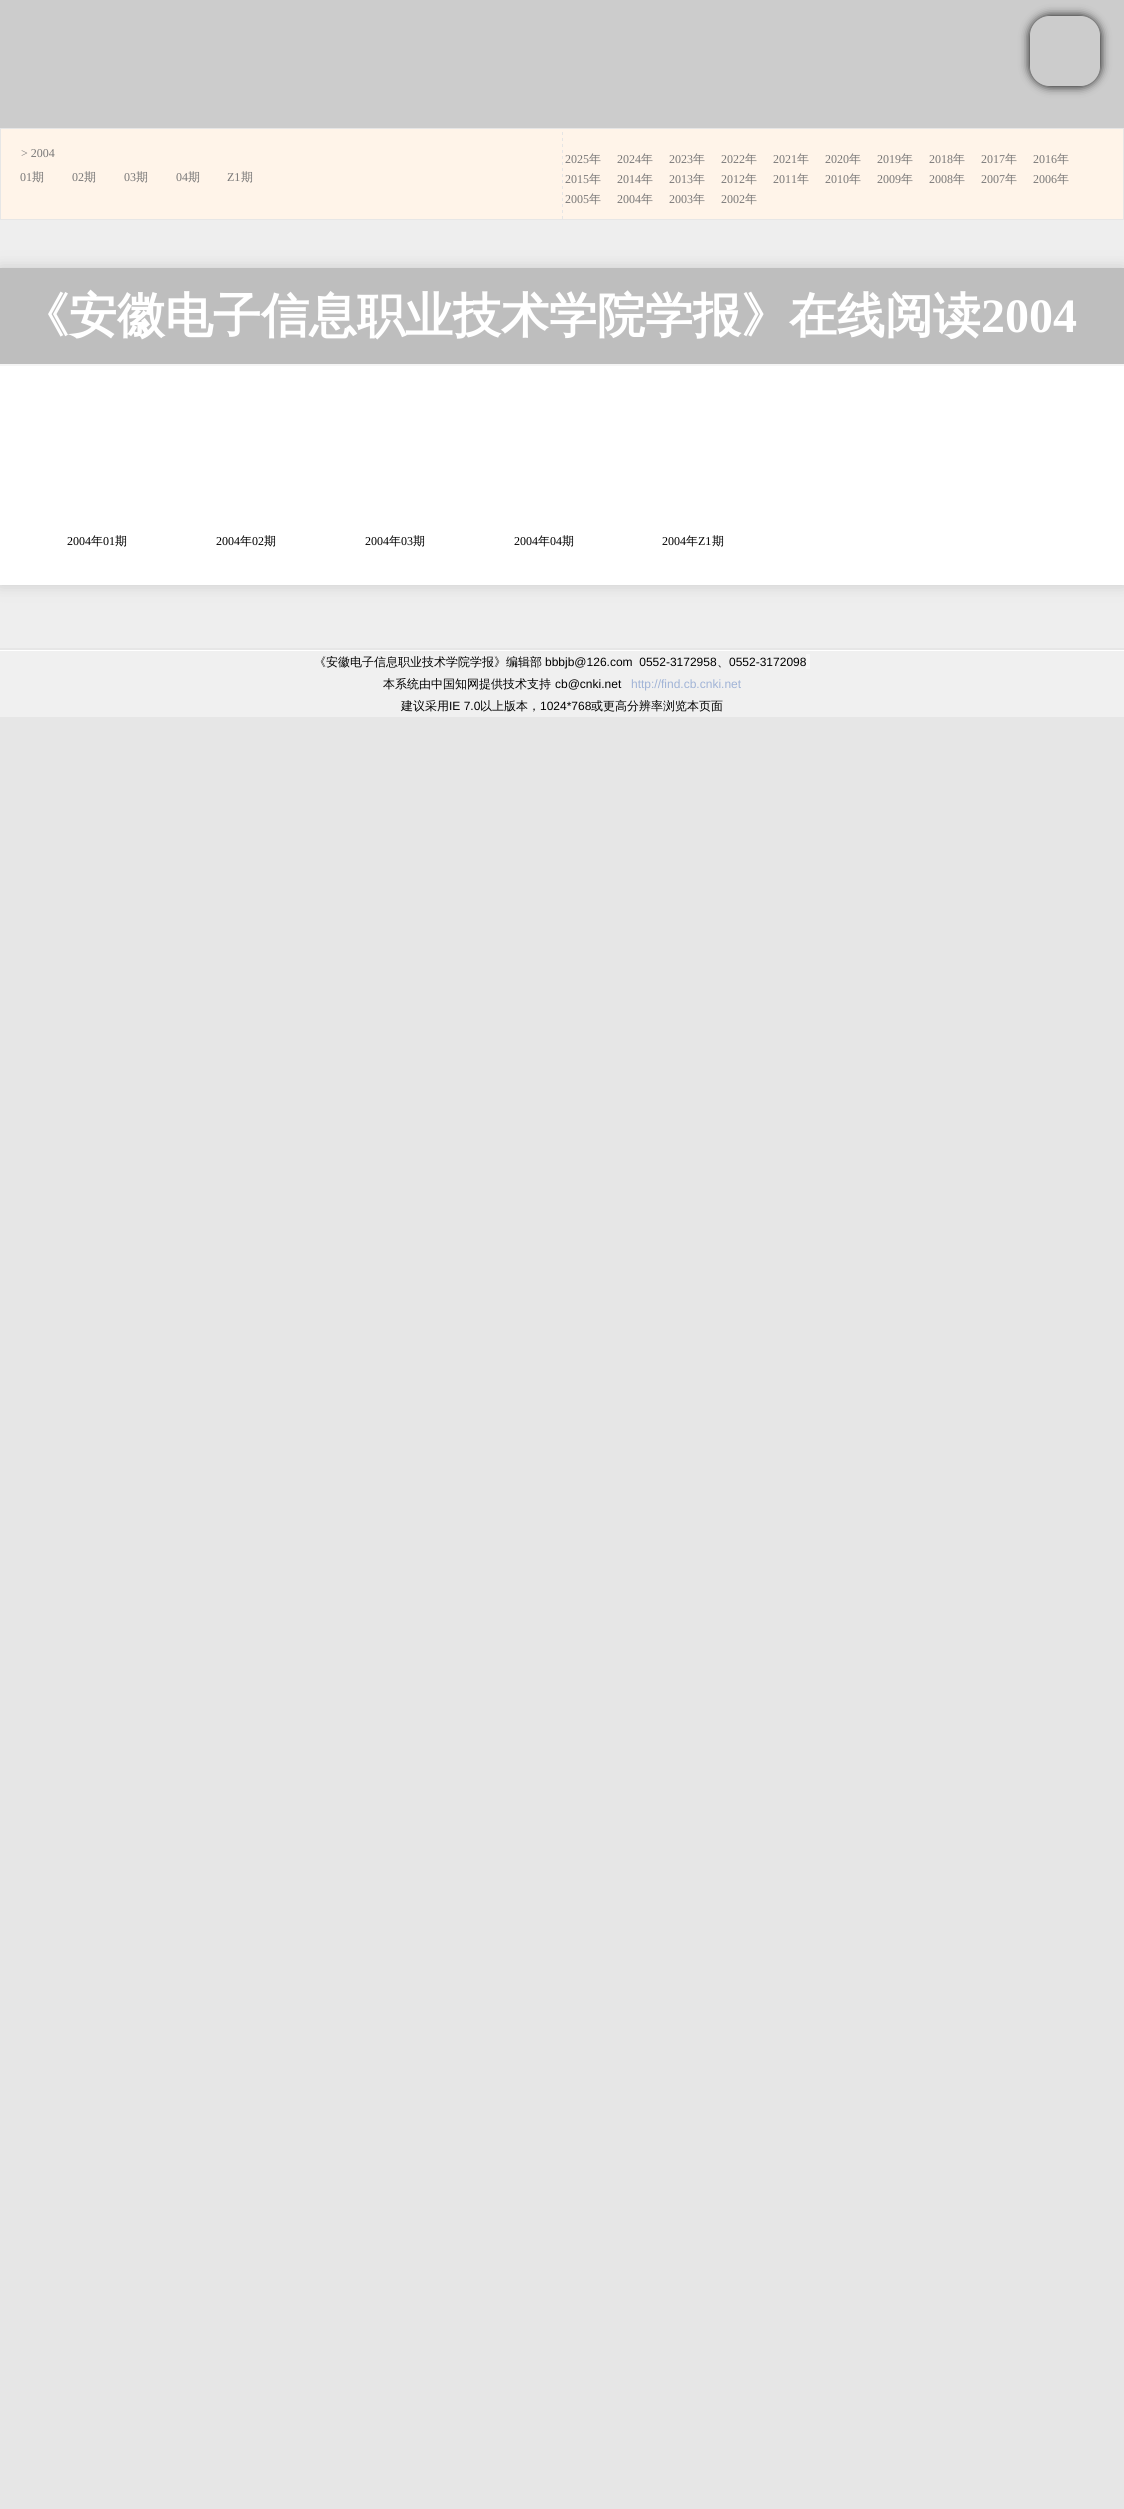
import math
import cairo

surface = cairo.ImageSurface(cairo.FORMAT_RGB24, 1124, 2509)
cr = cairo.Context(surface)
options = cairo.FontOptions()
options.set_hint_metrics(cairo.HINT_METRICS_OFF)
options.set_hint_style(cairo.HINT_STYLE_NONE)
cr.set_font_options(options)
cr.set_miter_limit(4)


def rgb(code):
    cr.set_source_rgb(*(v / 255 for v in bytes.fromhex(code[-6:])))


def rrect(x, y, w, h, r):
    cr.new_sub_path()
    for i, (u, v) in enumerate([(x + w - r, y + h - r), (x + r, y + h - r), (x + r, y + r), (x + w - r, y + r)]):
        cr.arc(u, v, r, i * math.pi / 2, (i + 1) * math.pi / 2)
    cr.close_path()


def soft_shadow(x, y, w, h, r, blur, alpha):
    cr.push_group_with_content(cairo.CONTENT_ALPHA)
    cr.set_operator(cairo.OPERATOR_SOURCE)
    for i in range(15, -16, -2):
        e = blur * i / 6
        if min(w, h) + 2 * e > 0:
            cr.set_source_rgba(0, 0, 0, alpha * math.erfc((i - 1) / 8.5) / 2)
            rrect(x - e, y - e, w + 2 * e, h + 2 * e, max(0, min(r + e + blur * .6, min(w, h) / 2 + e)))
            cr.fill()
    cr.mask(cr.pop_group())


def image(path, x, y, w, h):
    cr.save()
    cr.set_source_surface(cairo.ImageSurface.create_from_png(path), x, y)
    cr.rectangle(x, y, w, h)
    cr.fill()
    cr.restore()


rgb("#e6e6e6")
cr.paint()
rgb("#cccccc")
cr.rectangle(0, 0, 1124, 128)
cr.fill()
cr.save()
cr.set_fill_rule(cairo.FILL_RULE_EVEN_ODD)
cr.new_path()
cr.move_to(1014, 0)
cr.line_to(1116, 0)
cr.line_to(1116, 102)
cr.line_to(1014, 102)
cr.close_path()
cr.move_to(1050, 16)
cr.line_to(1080, 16)
cr.curve_to(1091, 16, 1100, 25, 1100, 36)
cr.line_to(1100, 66)
cr.curve_to(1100, 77, 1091, 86, 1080, 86)
cr.line_to(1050, 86)
cr.curve_to(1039, 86, 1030, 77, 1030, 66)
cr.line_to(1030, 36)
cr.curve_to(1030, 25, 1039, 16, 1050, 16)
cr.close_path()
cr.clip()
rgb("#000000")
soft_shadow(1030, 16, 70, 70, 20, 5, 1)
cr.restore()
rgb("#eeeeee")
cr.rectangle(0, 220, 1124, 428)
cr.fill()
rgb("#fff4e9")
cr.rectangle(1, 129, 1122, 90)
cr.fill()
image("img/1.png", 562, 132, 1, 87)
rgb("#cccccc")
soft_shadow(0, 268, 1124, 317, 0, 8, 1)
for x, y, w, h, color in [
    (0, 366, 1124, 219, "#ffffff"),
    (0, 268, 1124, 96, "#bebebe"),
    (0, 364, 1124, 2, "#f5f5f5"),
    (0, 651, 1124, 66, "#f0f0f0"),
    (0, 650, 1124, 1, "#ffffff"),
    (806, 654, 4, 15, "#f7f7f7"),
]:
    rgb(color)
    cr.rectangle(x, y, w, h)
    cr.fill()
cr.select_font_face("Liberation Serif")
cr.set_font_size(12)
rgb("#787777")
cr.move_to(21, 157)
cr.show_text("> 2004")
cr.move_to(20, 181)
cr.show_text("01")
cr.select_font_face("WenQuanYi Zen Hei Medium")
cr.move_to(32, 181)
cr.show_text("期")
cr.select_font_face("Liberation Serif")
cr.move_to(72, 181)
cr.show_text("02")
cr.select_font_face("WenQuanYi Zen Hei Medium")
cr.move_to(84, 181)
cr.show_text("期")
cr.select_font_face("Liberation Serif")
cr.move_to(124, 181)
cr.show_text("03")
cr.select_font_face("WenQuanYi Zen Hei Medium")
cr.move_to(136, 181)
cr.show_text("期")
cr.select_font_face("Liberation Serif")
cr.move_to(176, 181)
cr.show_text("04")
cr.select_font_face("WenQuanYi Zen Hei Medium")
cr.move_to(188, 181)
cr.show_text("期")
cr.select_font_face("Liberation Serif")
cr.move_to(227, 181)
cr.show_text("Z1")
cr.select_font_face("WenQuanYi Zen Hei Medium")
cr.move_to(241, 181)
cr.show_text("期")
cr.select_font_face("Liberation Serif")
cr.move_to(565, 163)
cr.show_text("2025")
cr.select_font_face("WenQuanYi Zen Hei Medium")
cr.move_to(589, 163)
cr.show_text("年")
cr.select_font_face("Liberation Serif")
cr.move_to(617, 163)
cr.show_text("2024")
cr.select_font_face("WenQuanYi Zen Hei Medium")
cr.move_to(641, 163)
cr.show_text("年")
cr.select_font_face("Liberation Serif")
cr.move_to(669, 163)
cr.show_text("2023")
cr.select_font_face("WenQuanYi Zen Hei Medium")
cr.move_to(693, 163)
cr.show_text("年")
cr.select_font_face("Liberation Serif")
cr.move_to(721, 163)
cr.show_text("2022")
cr.select_font_face("WenQuanYi Zen Hei Medium")
cr.move_to(745, 163)
cr.show_text("年")
cr.select_font_face("Liberation Serif")
cr.move_to(773, 163)
cr.show_text("2021")
cr.select_font_face("WenQuanYi Zen Hei Medium")
cr.move_to(797, 163)
cr.show_text("年")
cr.select_font_face("Liberation Serif")
cr.move_to(825, 163)
cr.show_text("2020")
cr.select_font_face("WenQuanYi Zen Hei Medium")
cr.move_to(849, 163)
cr.show_text("年")
cr.select_font_face("Liberation Serif")
cr.move_to(877, 163)
cr.show_text("2019")
cr.select_font_face("WenQuanYi Zen Hei Medium")
cr.move_to(901, 163)
cr.show_text("年")
cr.select_font_face("Liberation Serif")
cr.move_to(929, 163)
cr.show_text("2018")
cr.select_font_face("WenQuanYi Zen Hei Medium")
cr.move_to(953, 163)
cr.show_text("年")
cr.select_font_face("Liberation Serif")
cr.move_to(981, 163)
cr.show_text("2017")
cr.select_font_face("WenQuanYi Zen Hei Medium")
cr.move_to(1005, 163)
cr.show_text("年")
cr.select_font_face("Liberation Serif")
cr.move_to(1033, 163)
cr.show_text("2016")
cr.select_font_face("WenQuanYi Zen Hei Medium")
cr.move_to(1057, 163)
cr.show_text("年")
cr.select_font_face("Liberation Serif")
cr.move_to(565, 183)
cr.show_text("2015")
cr.select_font_face("WenQuanYi Zen Hei Medium")
cr.move_to(589, 183)
cr.show_text("年")
cr.select_font_face("Liberation Serif")
cr.move_to(617, 183)
cr.show_text("2014")
cr.select_font_face("WenQuanYi Zen Hei Medium")
cr.move_to(641, 183)
cr.show_text("年")
cr.select_font_face("Liberation Serif")
cr.move_to(669, 183)
cr.show_text("2013")
cr.select_font_face("WenQuanYi Zen Hei Medium")
cr.move_to(693, 183)
cr.show_text("年")
cr.select_font_face("Liberation Serif")
cr.move_to(721, 183)
cr.show_text("2012")
cr.select_font_face("WenQuanYi Zen Hei Medium")
cr.move_to(745, 183)
cr.show_text("年")
cr.select_font_face("Liberation Serif")
cr.move_to(773, 183)
cr.show_text("2011")
cr.select_font_face("WenQuanYi Zen Hei Medium")
cr.move_to(797, 183)
cr.show_text("年")
cr.select_font_face("Liberation Serif")
cr.move_to(825, 183)
cr.show_text("2010")
cr.select_font_face("WenQuanYi Zen Hei Medium")
cr.move_to(849, 183)
cr.show_text("年")
cr.select_font_face("Liberation Serif")
cr.move_to(877, 183)
cr.show_text("2009")
cr.select_font_face("WenQuanYi Zen Hei Medium")
cr.move_to(901, 183)
cr.show_text("年")
cr.select_font_face("Liberation Serif")
cr.move_to(929, 183)
cr.show_text("2008")
cr.select_font_face("WenQuanYi Zen Hei Medium")
cr.move_to(953, 183)
cr.show_text("年")
cr.select_font_face("Liberation Serif")
cr.move_to(981, 183)
cr.show_text("2007")
cr.select_font_face("WenQuanYi Zen Hei Medium")
cr.move_to(1005, 183)
cr.show_text("年")
cr.select_font_face("Liberation Serif")
cr.move_to(1033, 183)
cr.show_text("2006")
cr.select_font_face("WenQuanYi Zen Hei Medium")
cr.move_to(1057, 183)
cr.show_text("年")
cr.select_font_face("Liberation Serif")
cr.move_to(565, 203)
cr.show_text("2005")
cr.select_font_face("WenQuanYi Zen Hei Medium")
cr.move_to(589, 203)
cr.show_text("年")
cr.select_font_face("Liberation Serif")
cr.move_to(617, 203)
cr.show_text("2004")
cr.select_font_face("WenQuanYi Zen Hei Medium")
cr.move_to(641, 203)
cr.show_text("年")
cr.select_font_face("Liberation Serif")
cr.move_to(669, 203)
cr.show_text("2003")
cr.select_font_face("WenQuanYi Zen Hei Medium")
cr.move_to(693, 203)
cr.show_text("年")
cr.select_font_face("Liberation Serif")
cr.move_to(721, 203)
cr.show_text("2002")
cr.select_font_face("WenQuanYi Zen Hei Medium")
cr.move_to(745, 203)
cr.show_text("年")
cr.select_font_face("WenQuanYi Zen Hei", cairo.FONT_SLANT_NORMAL, cairo.FONT_WEIGHT_BOLD)
cr.set_font_size(48)
rgb("#ffffff")
cr.move_to(21, 332)
cr.show_text("《安徽电子信息职业技术学院学报》在线阅读")
cr.select_font_face("Liberation Serif", cairo.FONT_SLANT_NORMAL, cairo.FONT_WEIGHT_BOLD)
cr.move_to(981, 332)
cr.show_text("2004")
cr.select_font_face("Liberation Serif")
cr.set_font_size(12)
rgb("#000000")
cr.move_to(67, 545)
cr.show_text("2004")
cr.select_font_face("WenQuanYi Zen Hei Medium")
cr.move_to(91, 545)
cr.show_text("年")
cr.select_font_face("Liberation Serif")
cr.move_to(103, 545)
cr.show_text("01")
cr.select_font_face("WenQuanYi Zen Hei Medium")
cr.move_to(115, 545)
cr.show_text("期")
cr.select_font_face("Liberation Serif")
cr.move_to(216, 545)
cr.show_text("2004")
cr.select_font_face("WenQuanYi Zen Hei Medium")
cr.move_to(240, 545)
cr.show_text("年")
cr.select_font_face("Liberation Serif")
cr.move_to(252, 545)
cr.show_text("02")
cr.select_font_face("WenQuanYi Zen Hei Medium")
cr.move_to(264, 545)
cr.show_text("期")
cr.select_font_face("Liberation Serif")
cr.move_to(365, 545)
cr.show_text("2004")
cr.select_font_face("WenQuanYi Zen Hei Medium")
cr.move_to(389, 545)
cr.show_text("年")
cr.select_font_face("Liberation Serif")
cr.move_to(401, 545)
cr.show_text("03")
cr.select_font_face("WenQuanYi Zen Hei Medium")
cr.move_to(413, 545)
cr.show_text("期")
cr.select_font_face("Liberation Serif")
cr.move_to(514, 545)
cr.show_text("2004")
cr.select_font_face("WenQuanYi Zen Hei Medium")
cr.move_to(538, 545)
cr.show_text("年")
cr.select_font_face("Liberation Serif")
cr.move_to(550, 545)
cr.show_text("04")
cr.select_font_face("WenQuanYi Zen Hei Medium")
cr.move_to(562, 545)
cr.show_text("期")
cr.select_font_face("Liberation Serif")
cr.move_to(662, 545)
cr.show_text("2004")
cr.select_font_face("WenQuanYi Zen Hei Medium")
cr.move_to(686, 545)
cr.show_text("年")
cr.select_font_face("Liberation Serif")
cr.move_to(698, 545)
cr.show_text("Z1")
cr.select_font_face("WenQuanYi Zen Hei Medium")
cr.move_to(712, 545)
cr.show_text("期")
cr.move_to(314, 666)
cr.show_text("《安徽电子信息职业技术学院学报》编辑部")
cr.select_font_face("Liberation Sans")
cr.move_to(545, 666)
cr.show_text("bbbjb@126.com  0552-3172958")
cr.select_font_face("WenQuanYi Zen Hei Medium")
cr.move_to(717, 666)
cr.show_text("、")
cr.select_font_face("Liberation Sans")
cr.move_to(729, 666)
cr.show_text("0552-3172098")
cr.select_font_face("WenQuanYi Zen Hei Medium")
cr.move_to(383, 688)
cr.show_text("本系统由中国知网提供技术支持")
cr.select_font_face("Liberation Sans")
cr.move_to(555, 688)
cr.show_text("cb@cnki.net")
rgb("#a0b3d6")
cr.move_to(631, 688)
cr.show_text("http://find.cb.cnki.net")
cr.select_font_face("WenQuanYi Zen Hei Medium")
rgb("#000000")
cr.move_to(401, 710)
cr.show_text("建议采用")
cr.select_font_face("Liberation Sans")
cr.move_to(449, 710)
cr.show_text("IE 7.0")
cr.select_font_face("WenQuanYi Zen Hei Medium")
cr.move_to(480, 710)
cr.show_text("以上版本，")
cr.select_font_face("Liberation Sans")
cr.move_to(540, 710)
cr.show_text("1024*768")
cr.select_font_face("WenQuanYi Zen Hei Medium")
cr.move_to(591, 710)
cr.show_text("或更高分辨率浏览本页面")
surface.write_to_png("page.png")
